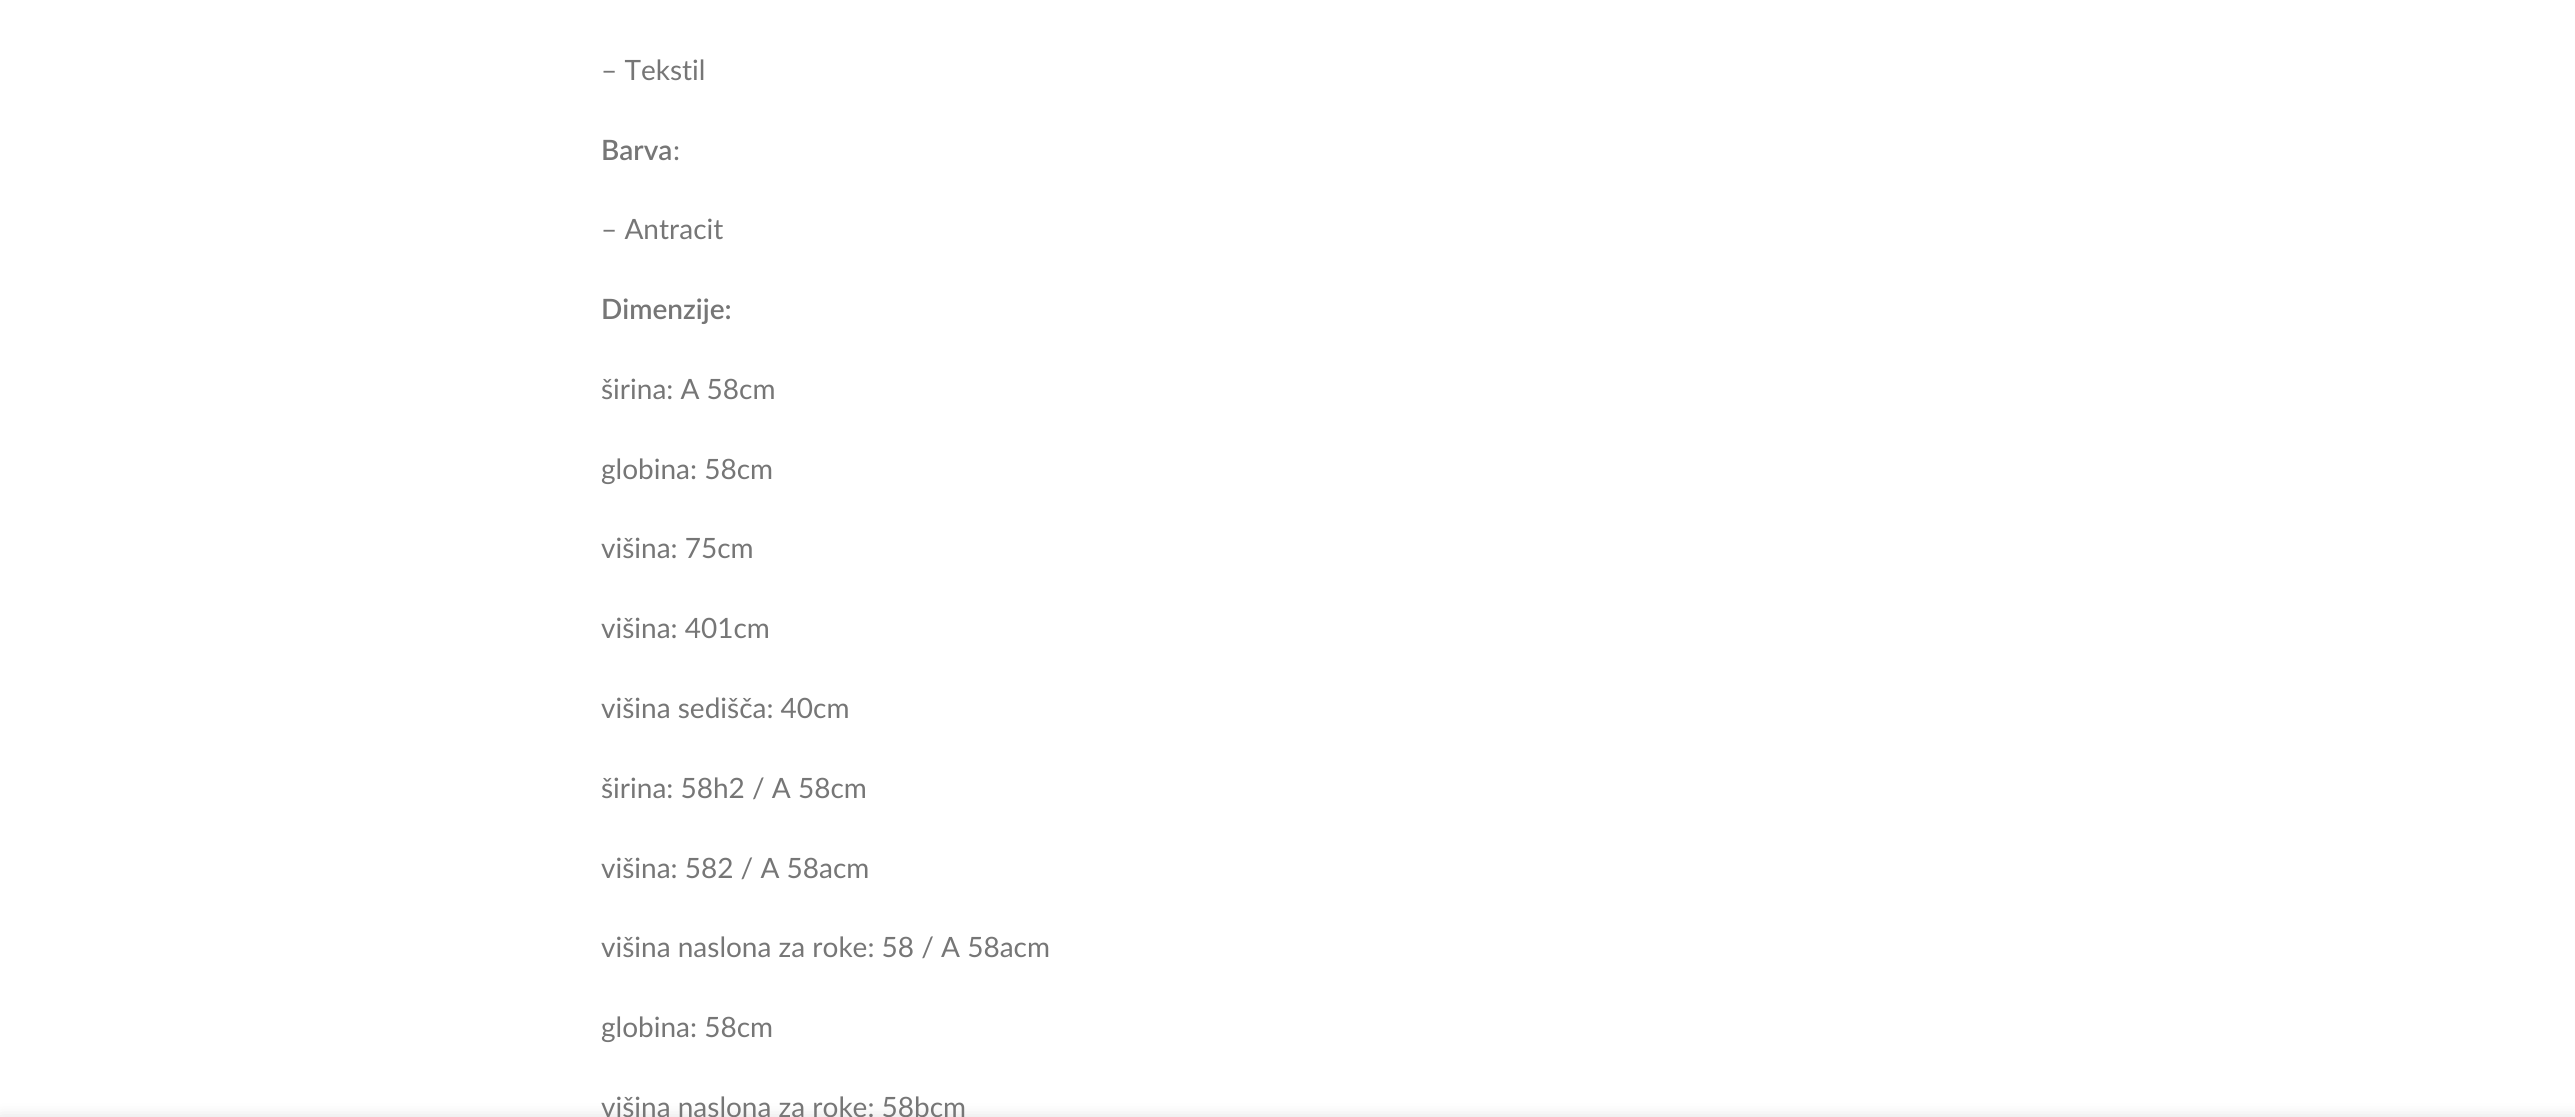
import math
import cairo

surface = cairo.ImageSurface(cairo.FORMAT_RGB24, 2575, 1117)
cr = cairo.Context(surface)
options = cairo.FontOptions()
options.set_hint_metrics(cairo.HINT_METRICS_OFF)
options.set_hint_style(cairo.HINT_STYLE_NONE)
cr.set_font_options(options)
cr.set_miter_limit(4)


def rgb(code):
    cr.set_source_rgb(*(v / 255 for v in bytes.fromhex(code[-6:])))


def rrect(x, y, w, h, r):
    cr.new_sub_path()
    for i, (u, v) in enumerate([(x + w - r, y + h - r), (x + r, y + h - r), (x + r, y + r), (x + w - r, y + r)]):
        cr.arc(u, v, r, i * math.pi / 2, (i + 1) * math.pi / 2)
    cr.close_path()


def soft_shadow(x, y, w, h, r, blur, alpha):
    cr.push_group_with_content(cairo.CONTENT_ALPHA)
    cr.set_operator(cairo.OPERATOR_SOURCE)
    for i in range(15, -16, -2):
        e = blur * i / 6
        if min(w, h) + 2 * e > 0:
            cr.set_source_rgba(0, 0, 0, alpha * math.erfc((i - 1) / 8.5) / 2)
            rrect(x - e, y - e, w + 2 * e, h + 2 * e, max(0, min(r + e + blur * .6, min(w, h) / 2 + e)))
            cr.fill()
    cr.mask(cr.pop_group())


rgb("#ffffff")
cr.paint()
rgb("#000000")
soft_shadow(0, 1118, 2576, 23, 0, 8, 0.14)
cr.select_font_face("Lato")
cr.set_font_size(28)
rgb("#767676")
cr.move_to(601, 80)
cr.show_text("– Tekstil")
cr.select_font_face("Lato SemiBold")
cr.move_to(601, 160)
cr.show_text("Barva")
cr.select_font_face("Lato")
cr.move_to(673, 160)
cr.show_text(":")
cr.move_to(601, 239)
cr.show_text("– Antracit")
cr.select_font_face("Lato SemiBold")
cr.move_to(601, 319)
cr.show_text("Dimenzije:")
cr.select_font_face("Lato")
for x, y, s in [
    (601, 399, "širina: A 58cm"),
    (601, 479, "globina: 58cm"),
    (601, 558, "višina: 75cm"),
    (601, 638, "višina: 401cm"),
    (601, 718, "višina sedišča: 40cm"),
    (601, 798, "širina: 58h2 / A 58cm"),
    (601, 878, "višina: 582 / A 58acm"),
    (601, 957, "višina naslona za roke: 58 / A 58acm"),
    (601, 1037, "globina: 58cm"),
    (601, 1117, "višina naslona za roke: 58bcm"),
]:
    cr.move_to(x, y)
    cr.show_text(s)
surface.write_to_png("page.png")
